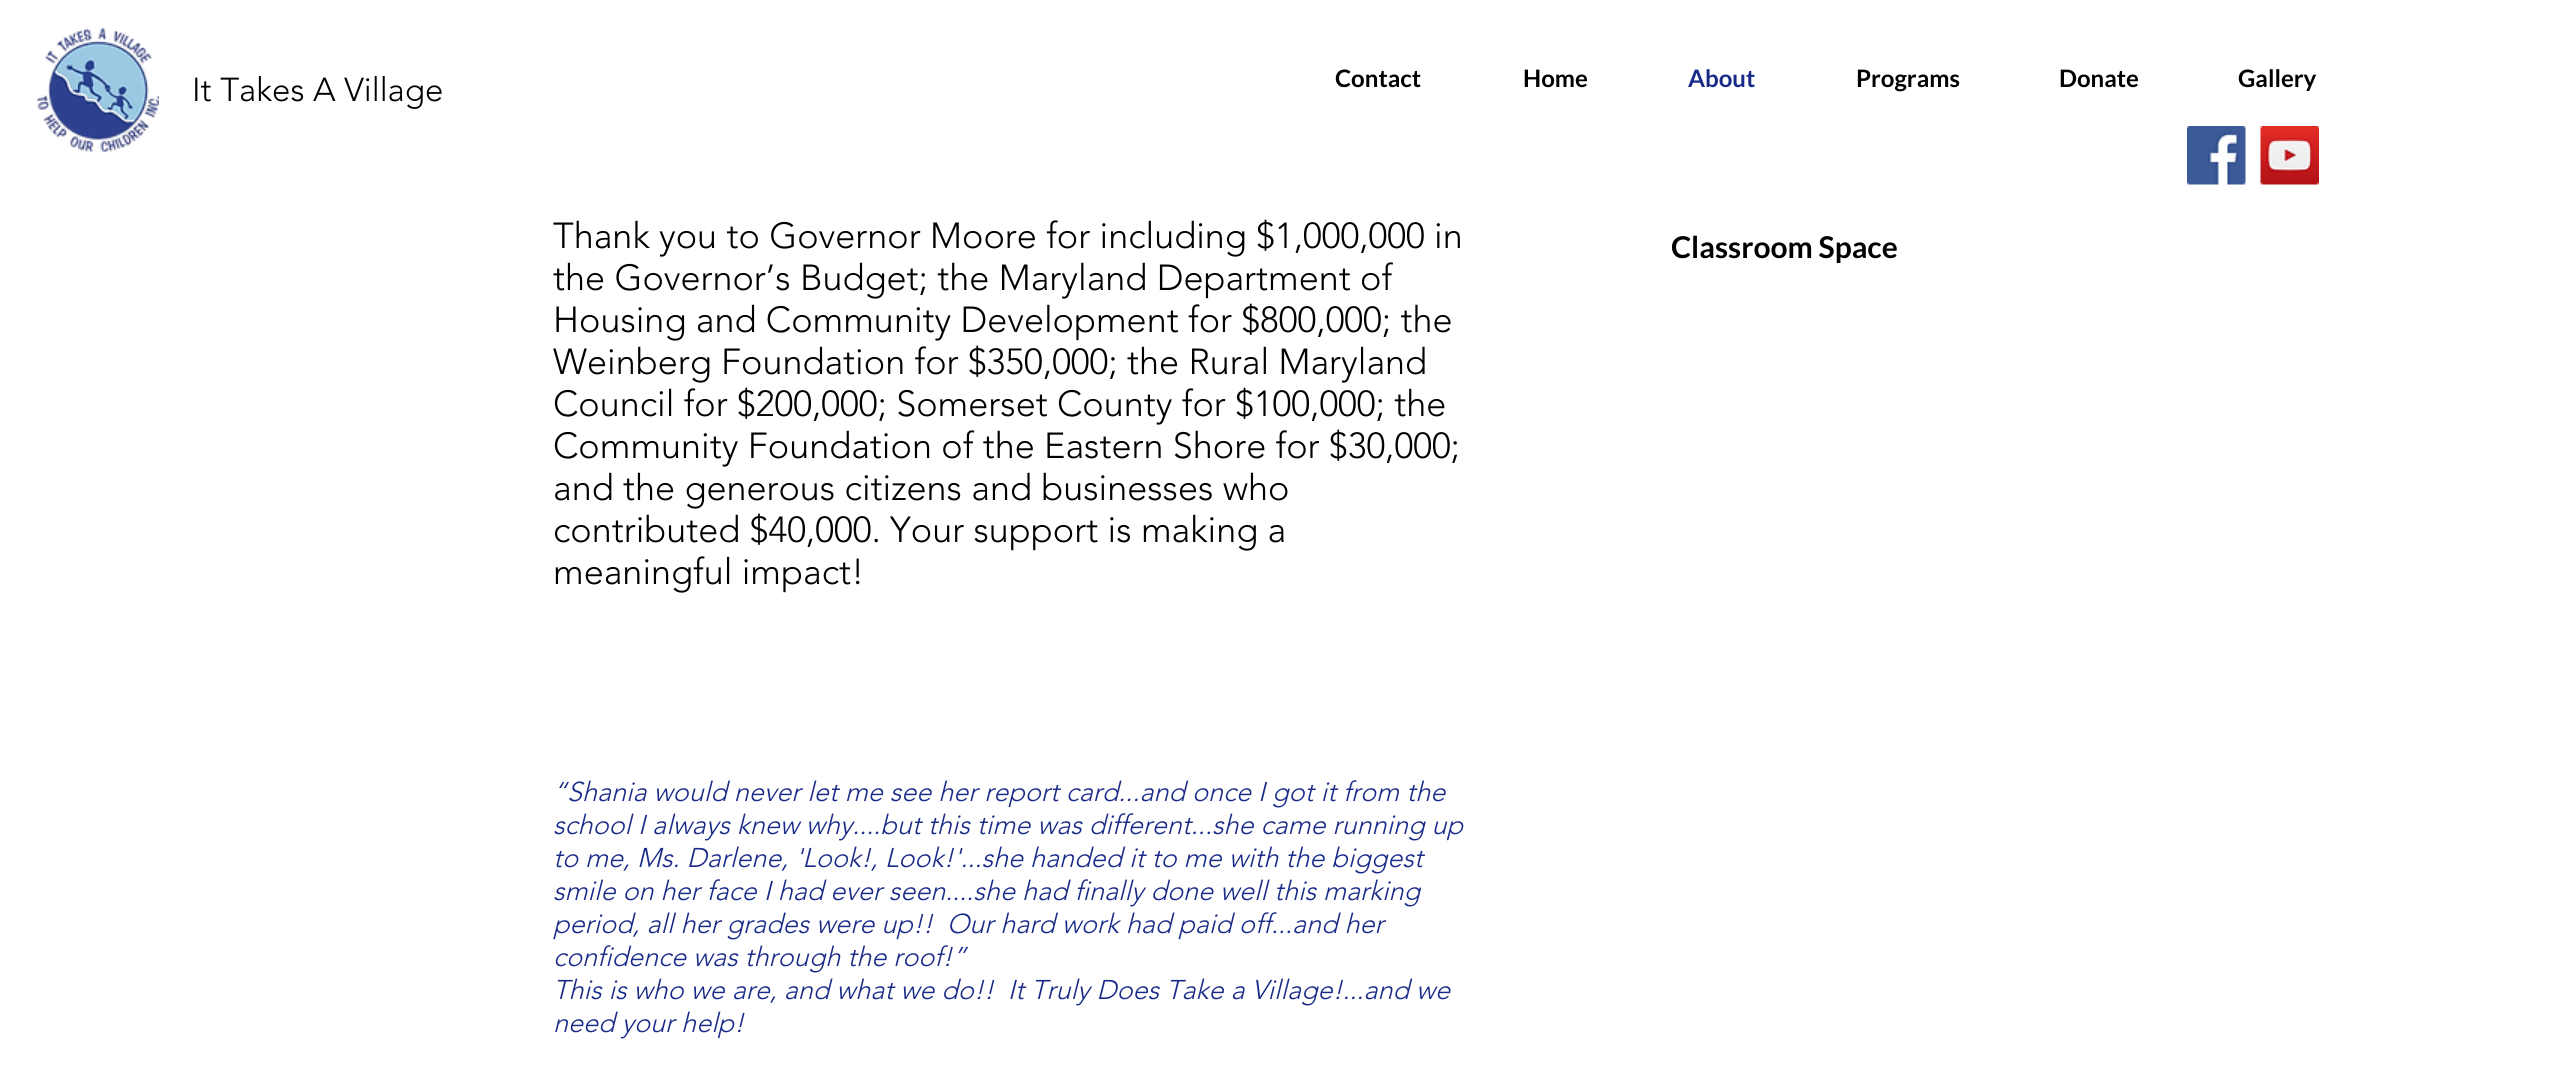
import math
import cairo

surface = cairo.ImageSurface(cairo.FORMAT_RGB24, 2575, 1076)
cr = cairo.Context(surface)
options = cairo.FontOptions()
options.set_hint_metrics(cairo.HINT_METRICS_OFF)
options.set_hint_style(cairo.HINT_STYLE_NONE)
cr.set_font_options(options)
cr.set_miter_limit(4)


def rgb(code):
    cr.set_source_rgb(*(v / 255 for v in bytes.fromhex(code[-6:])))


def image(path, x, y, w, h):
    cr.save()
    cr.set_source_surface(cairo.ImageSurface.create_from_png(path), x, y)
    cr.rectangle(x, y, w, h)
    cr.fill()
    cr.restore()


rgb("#ffffff")
cr.paint()
image("img/1.png", 37, 28, 122, 124)
image("img/2.png", 2187, 126, 59, 59)
image("img/3.png", 2260, 126, 59, 59)
cr.select_font_face("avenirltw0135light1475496 Light")
cr.set_font_size(33)
rgb("#000000")
cr.move_to(192, 101)
cr.show_text("It Takes A Village")
cr.select_font_face("Lato", cairo.FONT_SLANT_NORMAL, cairo.FONT_WEIGHT_BOLD)
cr.set_font_size(24)
cr.move_to(1335, 87)
cr.show_text("Contact")
cr.move_to(1523, 87)
cr.show_text("Home")
rgb("#192a88")
cr.move_to(1688, 87)
cr.show_text("About")
rgb("#000000")
for x, y, s in [
    (1856, 87, "Programs"),
    (2059, 87, "Donate"),
    (2238, 87, "Gallery"),
]:
    cr.move_to(x, y)
    cr.show_text(s)
cr.select_font_face("avenirltw0135light1475496 Light")
cr.set_font_size(36)
for x, y, s in [
    (553, 248, "Thank you to Governor Moore for including $1,000,000 in"),
    (553, 290, "the Governor’s Budget; the Maryland Department of"),
    (553, 332, "Housing and Community Development for $800,000; the"),
    (553, 374, "Weinberg Foundation for $350,000; the Rural Maryland"),
    (553, 416, "Council for $200,000; Somerset County for $100,000; the"),
    (553, 458, "Community Foundation of the Eastern Shore for $30,000;"),
    (553, 500, "and the generous citizens and businesses who"),
    (553, 542, "contributed $40,000. Your support is making a"),
    (553, 584, "meaningful impact!"),
]:
    cr.move_to(x, y)
    cr.show_text(s)
cr.select_font_face("Lato", cairo.FONT_SLANT_NORMAL, cairo.FONT_WEIGHT_BOLD)
cr.set_font_size(30)
cr.move_to(1671, 258)
cr.show_text("Classroom Space")
cr.select_font_face("avenirltw0135light1475496 Light", cairo.FONT_SLANT_ITALIC)
cr.set_font_size(27)
rgb("#192a88")
for x, y, s in [
    (553, 801, "“Shania would never let me see her report card...and once I got it from the"),
    (553, 834, "school I always knew why....but this time was different...she came running up"),
    (553, 867, "to me, Ms. Darlene, 'Look!, Look!'...she handed it to me with the biggest"),
    (553, 900, "smile on her face I had ever seen....she had finally done well this marking"),
    (553, 933, "period, all her grades were up!!  Our hard work had paid off...and her"),
    (553, 966, "confidence was through the roof!”"),
    (553, 999, "This is who we are, and what we do!!  It Truly Does Take a Village!...and we"),
    (553, 1032, "need your help!"),
]:
    cr.move_to(x, y)
    cr.show_text(s)
surface.write_to_png("page.png")
